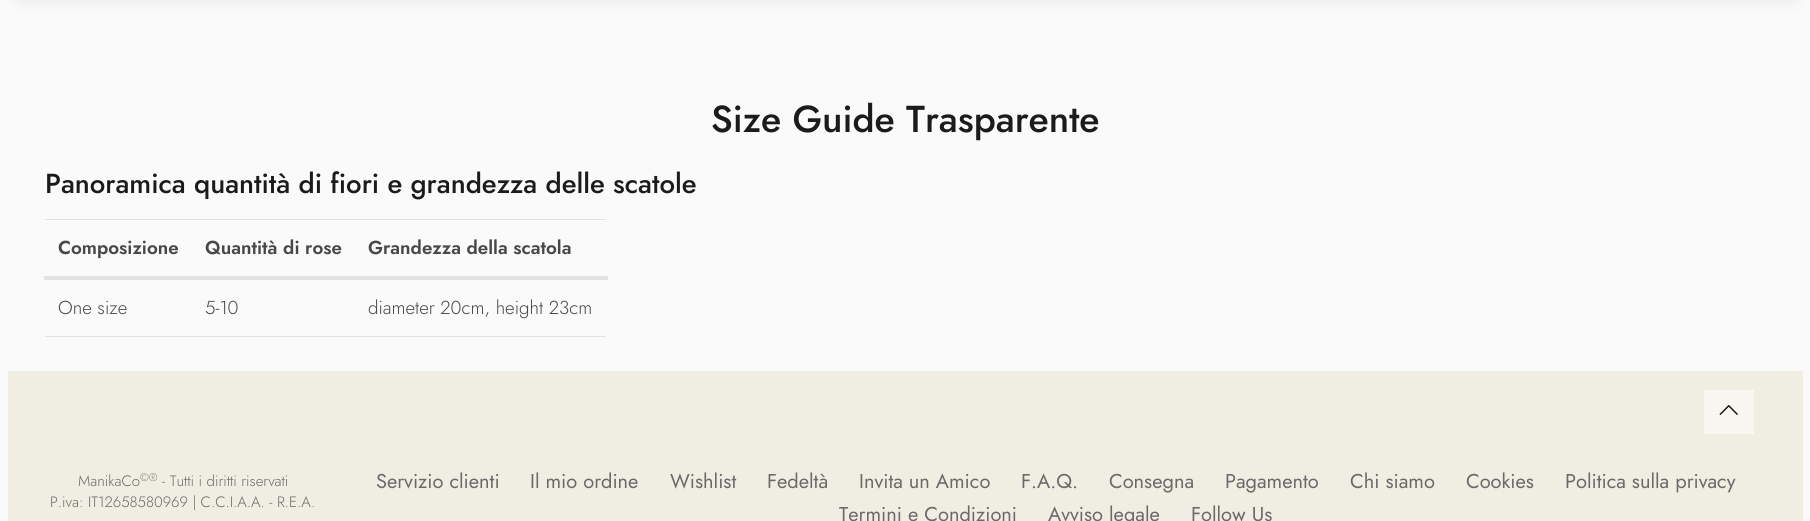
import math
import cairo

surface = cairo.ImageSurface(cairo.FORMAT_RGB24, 1810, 521)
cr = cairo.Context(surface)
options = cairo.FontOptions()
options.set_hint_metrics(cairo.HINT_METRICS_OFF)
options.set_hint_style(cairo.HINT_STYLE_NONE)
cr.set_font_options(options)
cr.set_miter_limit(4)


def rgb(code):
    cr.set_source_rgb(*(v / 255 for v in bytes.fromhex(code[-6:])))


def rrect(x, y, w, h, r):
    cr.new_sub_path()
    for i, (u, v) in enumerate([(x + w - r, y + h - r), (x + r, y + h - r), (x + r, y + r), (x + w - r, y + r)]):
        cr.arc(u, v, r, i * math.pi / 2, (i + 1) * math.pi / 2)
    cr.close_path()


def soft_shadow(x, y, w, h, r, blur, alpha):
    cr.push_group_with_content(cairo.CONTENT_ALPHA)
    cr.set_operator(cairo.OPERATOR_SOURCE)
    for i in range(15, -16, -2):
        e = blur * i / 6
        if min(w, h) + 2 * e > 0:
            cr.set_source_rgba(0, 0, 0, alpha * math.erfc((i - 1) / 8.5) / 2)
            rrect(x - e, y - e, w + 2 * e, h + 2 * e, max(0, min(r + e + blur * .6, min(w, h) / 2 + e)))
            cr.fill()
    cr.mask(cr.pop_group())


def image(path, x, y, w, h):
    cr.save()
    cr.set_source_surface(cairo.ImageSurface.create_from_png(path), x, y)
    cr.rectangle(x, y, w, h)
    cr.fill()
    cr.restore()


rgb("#fafafa")
cr.paint()
rgb("#000000")
soft_shadow(19, -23, 1775, 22, 0, 7.5, 0.1)
rgb("#e2e2e2")
cr.rectangle(45, 219, 561, 1)
cr.rectangle(44, 276, 564, 4)
cr.rectangle(45, 336, 561, 1)
cr.fill()
rgb("#f0ede2")
cr.rectangle(8, 371, 1795, 150)
cr.fill()
cr.set_source_rgba(1, 1, 1, 0.5)
cr.rectangle(1704, 390, 50, 44)
cr.fill()
image("img/1.png", 1719, 405, 19, 10)
cr.select_font_face("Jost Medium")
cr.set_font_size(37.5)
rgb("#1c1b1b")
cr.move_to(711, 132)
cr.show_text("Size Guide Trasparente")
cr.set_font_size(27.5)
cr.move_to(45, 193)
cr.show_text("Panoramica quantità di fiori e grandezza delle scatole")
cr.select_font_face("Jost SemiBold")
cr.set_font_size(18.75)
rgb("#484848")
for x, y, s in [
    (58, 254, "Composizione"),
    (205, 254, "Quantità di rose"),
    (368, 254, "Grandezza della scatola"),
]:
    cr.move_to(x, y)
    cr.show_text(s)
cr.select_font_face("Jost Light")
for x, y, s in [
    (58, 314, "One size"),
    (205, 314, "5-10"),
    (368, 314, "diameter 20cm, height 23cm"),
]:
    cr.move_to(x, y)
    cr.show_text(s)
cr.set_font_size(15)
rgb("#6a6a6a")
cr.move_to(78, 486)
cr.show_text("ManikaCo")
cr.set_font_size(11)
cr.move_to(140, 481)
cr.show_text("©®")
cr.set_font_size(15)
cr.move_to(162, 486)
cr.show_text("- Tutti i diritti riservati")
cr.move_to(50, 507)
cr.show_text("P.iva: IT12658580969 | C.C.I.A.A. - R.E.A.")
cr.select_font_face("Jost")
cr.set_font_size(20)
for x, y, s in [
    (376, 488, "Servizio clienti"),
    (530, 488, "Il mio ordine"),
    (670, 488, "Wishlist"),
    (767, 488, "Fedeltà"),
    (859, 488, "Invita un Amico"),
    (1021, 488, "F.A.Q."),
    (1109, 488, "Consegna"),
    (1225, 488, "Pagamento"),
    (1350, 488, "Chi siamo"),
    (1466, 488, "Cookies"),
    (1565, 488, "Politica sulla privacy"),
    (839, 521, "Termini e Condizioni"),
    (1048, 521, "Avviso legale"),
    (1191, 521, "Follow Us"),
]:
    cr.move_to(x, y)
    cr.show_text(s)
surface.write_to_png("page.png")
